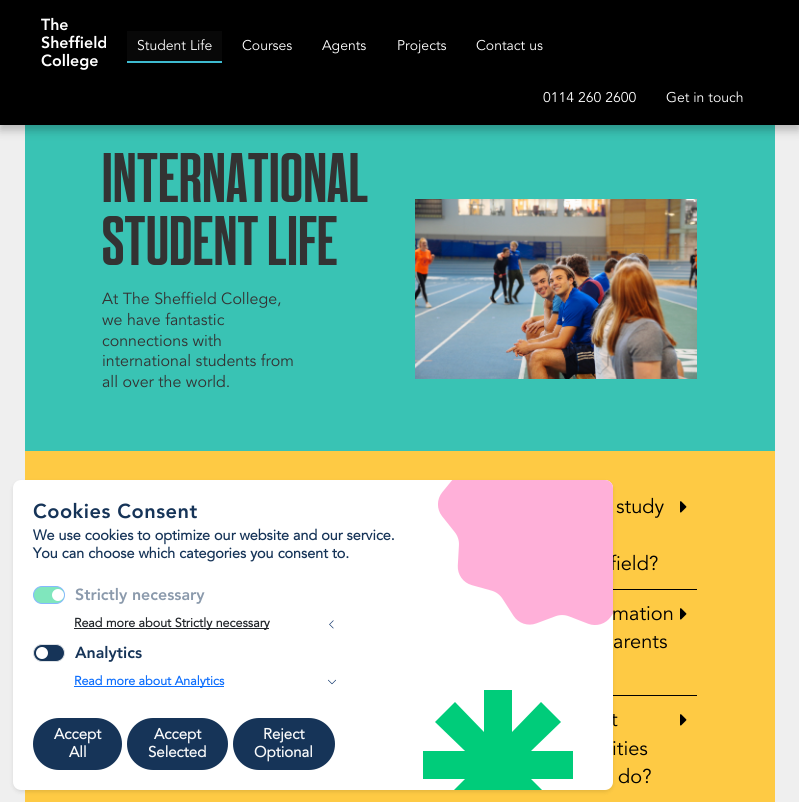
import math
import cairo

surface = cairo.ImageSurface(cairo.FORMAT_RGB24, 799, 802)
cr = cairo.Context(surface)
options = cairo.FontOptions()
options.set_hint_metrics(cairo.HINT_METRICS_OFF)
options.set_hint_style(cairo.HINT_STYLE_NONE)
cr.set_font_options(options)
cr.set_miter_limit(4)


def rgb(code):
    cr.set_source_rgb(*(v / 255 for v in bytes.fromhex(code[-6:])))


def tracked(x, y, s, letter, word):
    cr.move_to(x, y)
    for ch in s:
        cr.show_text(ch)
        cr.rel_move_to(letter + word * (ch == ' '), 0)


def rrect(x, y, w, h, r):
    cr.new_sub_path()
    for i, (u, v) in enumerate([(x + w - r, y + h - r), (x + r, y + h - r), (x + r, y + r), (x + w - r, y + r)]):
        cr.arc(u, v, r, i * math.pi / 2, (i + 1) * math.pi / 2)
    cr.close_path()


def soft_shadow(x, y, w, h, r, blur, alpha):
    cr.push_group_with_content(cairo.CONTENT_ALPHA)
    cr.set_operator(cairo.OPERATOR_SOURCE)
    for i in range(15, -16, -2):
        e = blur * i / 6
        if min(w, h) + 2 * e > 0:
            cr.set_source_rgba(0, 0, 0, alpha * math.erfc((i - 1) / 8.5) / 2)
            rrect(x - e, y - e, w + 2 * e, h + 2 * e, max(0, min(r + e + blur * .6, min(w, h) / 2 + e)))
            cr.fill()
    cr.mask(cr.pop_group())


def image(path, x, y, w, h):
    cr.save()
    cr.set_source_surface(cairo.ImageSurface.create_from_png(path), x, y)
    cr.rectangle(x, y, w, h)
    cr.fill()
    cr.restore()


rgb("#efefef")
cr.paint()
rgb("#39c3b4")
cr.rectangle(25, 125, 750, 326)
cr.fill()
rgb("#000000")
soft_shadow(0, 5, 799, 125, 0, 5, 0.25)
for x, y, w, h, color in [
    (0, 0, 799, 125, "#000000"),
    (127, 31, 95, 30, "#080808"),
    (127, 61, 95, 2, "#3ebbd0"),
]:
    rgb(color)
    cr.rectangle(x, y, w, h)
    cr.fill()
image("img/1.png", 415, 199, 282, 180)
for x, y, w, h, color in [
    (25, 451, 750, 351, "#feca44"),
    (613, 589, 84, 1, "#000000"),
    (613, 695, 84, 1, "#000000"),
]:
    rgb(color)
    cr.rectangle(x, y, w, h)
    cr.fill()
rgb("#000000")
soft_shadow(13, 482, 600, 310, 8, 2, 0.1)
image("img/5.png", 680, 501, 7, 12)
image("img/5.png", 680, 608, 7, 12)
image("img/5.png", 680, 714, 7, 12)
cr.select_font_face("Avenir Black")
cr.set_font_size(16)
rgb("#ffffff")
for x, y, s in [
    (41, 30, "The"),
    (41, 48, "Sheffield"),
    (41, 66, "College"),
]:
    cr.move_to(x, y)
    cr.show_text(s)
cr.select_font_face("Avenir")
cr.set_font_size(14)
for x, y, s in [
    (137, 50, "Student Life"),
    (242, 50, "Courses"),
    (322, 50, "Agents"),
    (397, 50, "Projects"),
    (476, 50, "Contact us"),
    (543, 102, "0114 260 2600"),
    (666, 102, "Get in touch"),
]:
    cr.move_to(x, y)
    cr.show_text(s)
cr.select_font_face("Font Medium")
cr.set_font_size(70)
rgb("#333333")
tracked(102, 202, "INTERNATIONAL", 0.5, 0)
tracked(102, 265, "STUDENT LIFE", 0.5, 0)
cr.select_font_face("Avenir")
cr.set_font_size(16)
for x, y, s in [
    (102, 304, "At The Sheffield College,"),
    (102, 325, "we have fantastic"),
    (102, 346, "connections with"),
    (102, 366, "international students from"),
    (102, 387, "all over the world."),
]:
    cr.move_to(x, y)
    cr.show_text(s)
cr.set_font_size(20)
rgb("#000000")
for x, y, s in [
    (616, 513, "study"),
    (610, 570, "field?"),
    (612, 620, "mation"),
    (613, 648, "arents"),
    (611, 726, "t"),
]:
    cr.move_to(x, y)
    cr.show_text(s)
rgb("#ffffff")
rrect(13, 480, 600, 310, 8)
cr.fill()
image("img/3.png", 328, 679, 8, 6)
rgb("#0d6efd")
cr.rectangle(74, 686, 150, 1)
cr.fill()
cr.select_font_face("Avenir", cairo.FONT_SLANT_NORMAL, cairo.FONT_WEIGHT_BOLD)
cr.set_font_size(12.5)
cr.move_to(74, 685)
cr.show_text("Read more about Analytics")
rgb("#163458")
rrect(33.5, 644.5, 31, 17, 8.5)
cr.fill_preserve()
rgb("#dee2e6")
cr.set_line_width(1)
cr.stroke()
rgb("#ffffff")
cr.arc(42, 653, 6, 0, 2 * math.pi)
cr.fill()
cr.select_font_face("Avenir Black")
cr.set_font_size(16)
rgb("#163458")
cr.move_to(75, 658)
cr.show_text("Analytics")
image("img/2.png", 329, 620, 5, 9)
rgb("#212529")
cr.rectangle(74, 628, 195, 1)
cr.fill()
cr.select_font_face("Avenir", cairo.FONT_SLANT_NORMAL, cairo.FONT_WEIGHT_BOLD)
cr.set_font_size(12.5)
cr.move_to(74, 627)
cr.show_text("Read more about Strictly necessary")
cr.select_font_face("Avenir Black")
cr.set_font_size(16)
rgb("#8b9aac")
cr.move_to(75, 600)
cr.show_text("Strictly necessary")
rgb("#80e6bd")
rrect(33.5, 586.5, 31, 17, 8.5)
cr.fill_preserve()
rgb("#86b7fe")
cr.stroke()
rgb("#ffffff")
cr.arc(58, 595, 6, 0, 2 * math.pi)
cr.fill()
rgb("#00cc7a")
cr.new_path()
cr.move_to(573, 751)
cr.line_to(573, 779)
cr.line_to(531, 779)
cr.line_to(542, 790)
cr.line_to(454, 790)
cr.line_to(465, 779)
cr.line_to(423, 779)
cr.line_to(423, 751)
cr.line_to(465, 751)
cr.line_to(435, 722)
cr.line_to(455, 702)
cr.line_to(484, 732)
cr.line_to(484, 690)
cr.line_to(512, 690)
cr.line_to(512, 732)
cr.line_to(541, 702)
cr.line_to(561, 722)
cr.line_to(531, 751)
cr.close_path()
cr.fill()
image("img/4.png", 438, 480, 175, 145)
rgb("#163458")
rrect(233, 718, 102, 52, 26)
cr.fill()
cr.select_font_face("Avenir", cairo.FONT_SLANT_NORMAL, cairo.FONT_WEIGHT_BOLD)
cr.set_font_size(15)
rgb("#f8f9fa")
cr.move_to(254, 757)
cr.show_text("Optional")
cr.move_to(263, 739)
cr.show_text("Reject")
rgb("#163458")
rrect(127, 718, 101, 52, 26)
cr.fill()
rgb("#f8f9fa")
cr.move_to(148, 757)
cr.show_text("Selected")
cr.move_to(154, 739)
cr.show_text("Accept")
rgb("#163458")
rrect(33, 718, 89, 52, 26)
cr.fill()
rgb("#f8f9fa")
cr.move_to(69, 757)
cr.show_text("All")
cr.move_to(54, 739)
cr.show_text("Accept")
cr.set_font_size(14.4)
rgb("#163458")
cr.move_to(33, 558)
cr.show_text("You can choose which categories you consent to.")
cr.move_to(33, 540)
cr.show_text("We use cookies to optimize our website and our service.")
cr.select_font_face("Avenir Black")
cr.set_font_size(20)
tracked(33, 518, "Cookies Consent", 0.5, 0)
cr.select_font_face("Avenir")
rgb("#000000")
cr.move_to(612, 755)
cr.show_text("ities")
cr.move_to(618, 783)
cr.show_text("do?")
surface.write_to_png("page.png")
